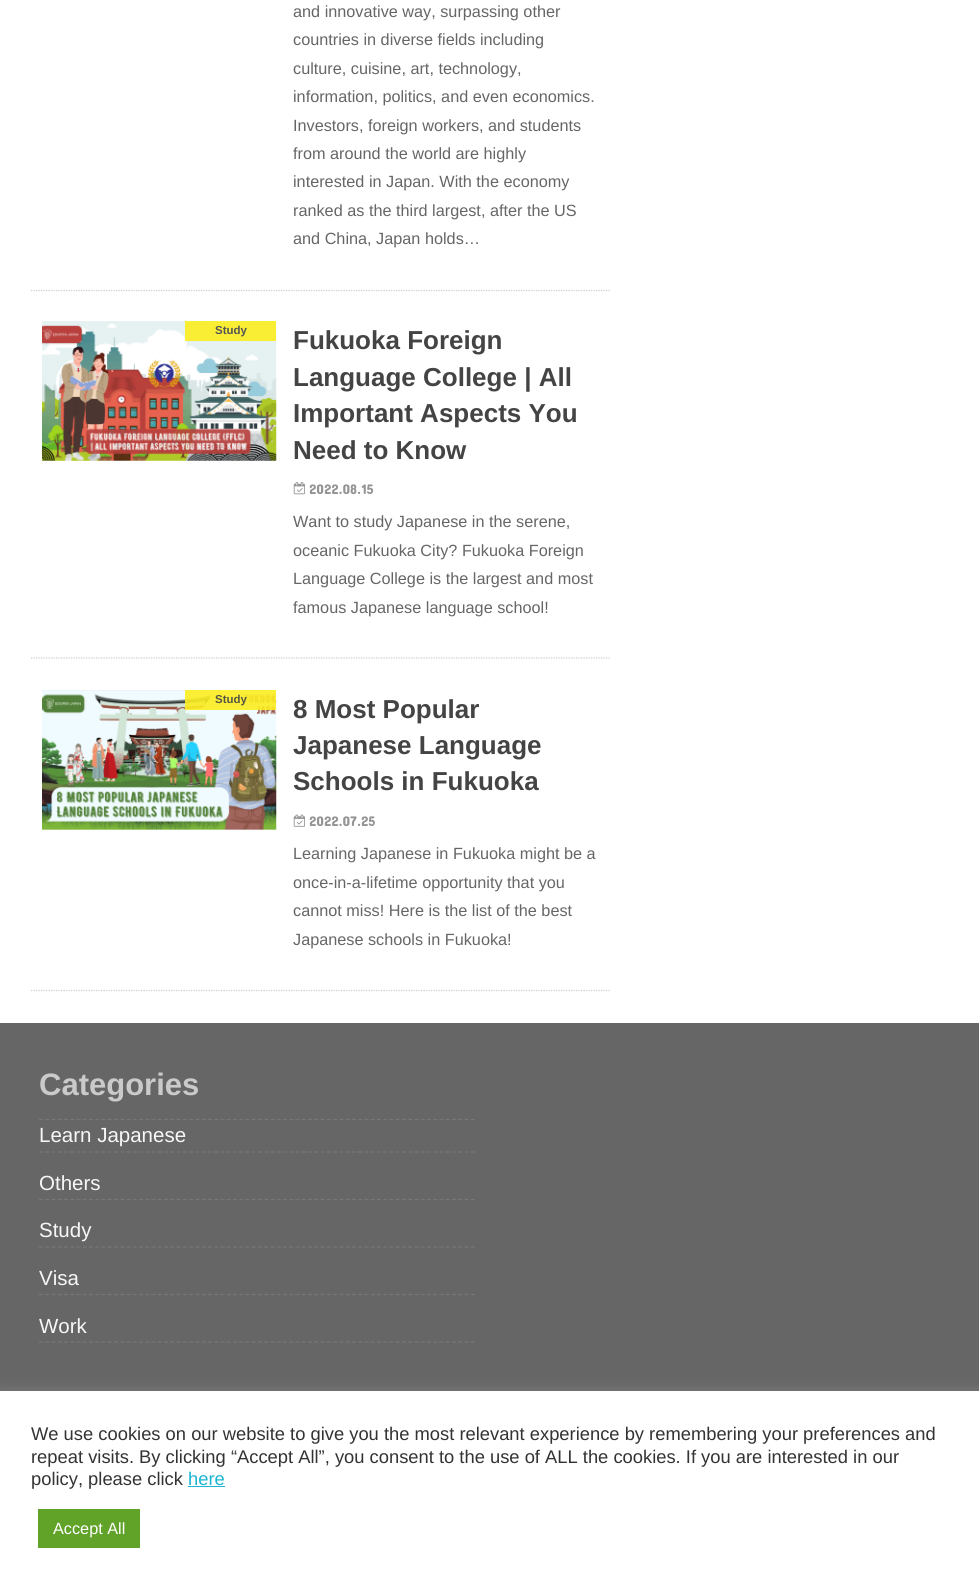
import math
import cairo

surface = cairo.ImageSurface(cairo.FORMAT_RGB24, 979, 1585)
cr = cairo.Context(surface)
options = cairo.FontOptions()
options.set_hint_metrics(cairo.HINT_METRICS_OFF)
options.set_hint_style(cairo.HINT_STYLE_NONE)
cr.set_font_options(options)
cr.set_miter_limit(4)


def rgb(code):
    cr.set_source_rgb(*(v / 255 for v in bytes.fromhex(code[-6:])))


def rrect(x, y, w, h, r):
    cr.new_sub_path()
    for i, (u, v) in enumerate([(x + w - r, y + h - r), (x + r, y + h - r), (x + r, y + r), (x + w - r, y + r)]):
        cr.arc(u, v, r, i * math.pi / 2, (i + 1) * math.pi / 2)
    cr.close_path()


def soft_shadow(x, y, w, h, r, blur, alpha):
    cr.push_group_with_content(cairo.CONTENT_ALPHA)
    cr.set_operator(cairo.OPERATOR_SOURCE)
    for i in range(15, -16, -2):
        e = blur * i / 6
        if min(w, h) + 2 * e > 0:
            cr.set_source_rgba(0, 0, 0, alpha * math.erfc((i - 1) / 8.5) / 2)
            rrect(x - e, y - e, w + 2 * e, h + 2 * e, max(0, min(r + e + blur * .6, min(w, h) / 2 + e)))
            cr.fill()
    cr.mask(cr.pop_group())


def image(path, x, y, w, h):
    cr.save()
    cr.set_source_surface(cairo.ImageSurface.create_from_png(path), x, y)
    cr.rectangle(x, y, w, h)
    cr.fill()
    cr.restore()


rgb("#ffffff")
cr.paint()
cr.new_path()
cr.move_to(31, 290.5)
cr.line_to(611, 290.5)
rgb("#cccccc")
cr.set_line_width(1.2)
cr.set_dash([1.25, 1.25])
cr.stroke()
cr.new_path()
cr.move_to(31, 658)
cr.line_to(611, 658)
cr.stroke()
image("img/1.png", 42, 321, 235, 140)
cr.set_source_rgba(0.988, 0.933, 0.129, 0.9)
cr.rectangle(185, 321, 91, 20)
cr.fill()
image("img/2.png", 293, 482, 12, 13)
cr.new_path()
cr.move_to(31, 990.5)
cr.line_to(611, 990.5)
rgb("#cccccc")
cr.stroke()
image("img/3.png", 42, 690, 235, 140)
cr.set_source_rgba(0.988, 0.933, 0.129, 0.9)
cr.rectangle(185, 690, 91, 20)
cr.fill()
image("img/4.png", 293, 814, 12, 13)
rgb("#666666")
cr.rectangle(0, 1023, 979, 368)
cr.fill()
cr.new_path()
cr.move_to(39, 1119.5)
cr.line_to(475, 1119.5)
rgb("#777777")
cr.set_dash([3.75, 2.51])
cr.stroke()
cr.new_path()
cr.move_to(39, 1152)
cr.line_to(475, 1152)
cr.stroke()
cr.new_path()
cr.move_to(39, 1199.5)
cr.line_to(475, 1199.5)
cr.stroke()
cr.new_path()
cr.move_to(39, 1247)
cr.line_to(475, 1247)
cr.stroke()
cr.new_path()
cr.move_to(39, 1294.5)
cr.line_to(475, 1294.5)
cr.stroke()
cr.new_path()
cr.move_to(39, 1342)
cr.line_to(475, 1342)
cr.stroke()
rgb("#acabab")
soft_shadow(0, 1390, 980, 194, 0, 6, 0.3)
for x, y, w, h, color in [
    (0, 1391, 979, 194, "#ffffff"),
    (188, 1486, 37, 1, "#1bb4d3"),
    (38, 1509, 102, 39, "#61a229"),
]:
    rgb(color)
    cr.rectangle(x, y, w, h)
    cr.fill()
cr.select_font_face("Liberation Sans")
cr.set_font_size(16.25)
rgb("#666666")
for x, y, s in [
    (293, 17, "and innovative way, surpassing other"),
    (293, 45, "countries in diverse fields including"),
    (293, 74, "culture, cuisine, art, technology,"),
    (293, 102, "information, politics, and even economics."),
    (293, 131, "Investors, foreign workers, and students"),
    (293, 159, "from around the world are highly"),
    (293, 187, "interested in Japan. With the economy"),
    (293, 216, "ranked as the third largest, after the US"),
    (293, 244, "and China, Japan holds…"),
]:
    cr.move_to(x, y)
    cr.show_text(s)
cr.select_font_face("Liberation Sans", cairo.FONT_SLANT_NORMAL, cairo.FONT_WEIGHT_BOLD)
cr.set_font_size(11.5)
rgb("#545555")
cr.move_to(215, 334)
cr.show_text("Study")
cr.set_font_size(26)
rgb("#444444")
for x, y, s in [
    (293, 349, "Fukuoka Foreign"),
    (293, 386, "Language College | All"),
    (293, 422, "Important Aspects You"),
    (293, 459, "Need to Know"),
]:
    cr.move_to(x, y)
    cr.show_text(s)
cr.select_font_face("Concert One")
cr.set_font_size(14)
rgb("#949494")
cr.move_to(309, 494)
cr.show_text("2022.08.15")
cr.select_font_face("Liberation Sans")
cr.set_font_size(16.25)
rgb("#666666")
for x, y, s in [
    (293, 527, "Want to study Japanese in the serene,"),
    (293, 556, "oceanic Fukuoka City? Fukuoka Foreign"),
    (293, 584, "Language College is the largest and most"),
    (293, 613, "famous Japanese language school!"),
]:
    cr.move_to(x, y)
    cr.show_text(s)
cr.select_font_face("Liberation Sans", cairo.FONT_SLANT_NORMAL, cairo.FONT_WEIGHT_BOLD)
cr.set_font_size(11.5)
rgb("#565543")
cr.move_to(215, 703)
cr.show_text("Study")
cr.set_font_size(26)
rgb("#444444")
for x, y, s in [
    (293, 718, "8 Most Popular"),
    (293, 754, "Japanese Language"),
    (293, 790, "Schools in Fukuoka"),
]:
    cr.move_to(x, y)
    cr.show_text(s)
cr.select_font_face("Concert One")
cr.set_font_size(14)
rgb("#949494")
cr.move_to(309, 826)
cr.show_text("2022.07.25")
cr.select_font_face("Liberation Sans")
cr.set_font_size(16.25)
rgb("#666666")
for x, y, s in [
    (293, 859, "Learning Japanese in Fukuoka might be a"),
    (293, 888, "once-in-a-lifetime opportunity that you"),
    (293, 916, "cannot miss! Here is the list of the best"),
    (293, 945, "Japanese schools in Fukuoka!"),
]:
    cr.move_to(x, y)
    cr.show_text(s)
cr.select_font_face("Liberation Sans", cairo.FONT_SLANT_NORMAL, cairo.FONT_WEIGHT_BOLD)
cr.set_font_size(31)
rgb("#cacaca")
cr.move_to(39, 1095)
cr.show_text("Categories")
cr.select_font_face("Liberation Sans")
cr.set_font_size(20.5)
rgb("#f7f7f7")
for x, y, s in [
    (39, 1142, "Learn Japanese"),
    (39, 1190, "Others"),
    (39, 1237, "Study"),
    (39, 1285, "Visa"),
    (39, 1333, "Work"),
]:
    cr.move_to(x, y)
    cr.show_text(s)
cr.set_font_size(18.35)
rgb("#333333")
for x, y, s in [
    (31, 1440, "We use cookies on our website to give you the most relevant experience by remembering your preferences and"),
    (31, 1463, "repeat visits. By clicking “Accept All”, you consent to the use of ALL the cookies. If you are interested in our"),
    (31, 1485, "policy, please click"),
]:
    cr.move_to(x, y)
    cr.show_text(s)
rgb("#1bb4d3")
cr.move_to(188, 1485)
cr.show_text("here")
cr.set_font_size(16.25)
rgb("#ffffff")
cr.move_to(53, 1534)
cr.show_text("Accept All")
surface.write_to_png("page.png")
